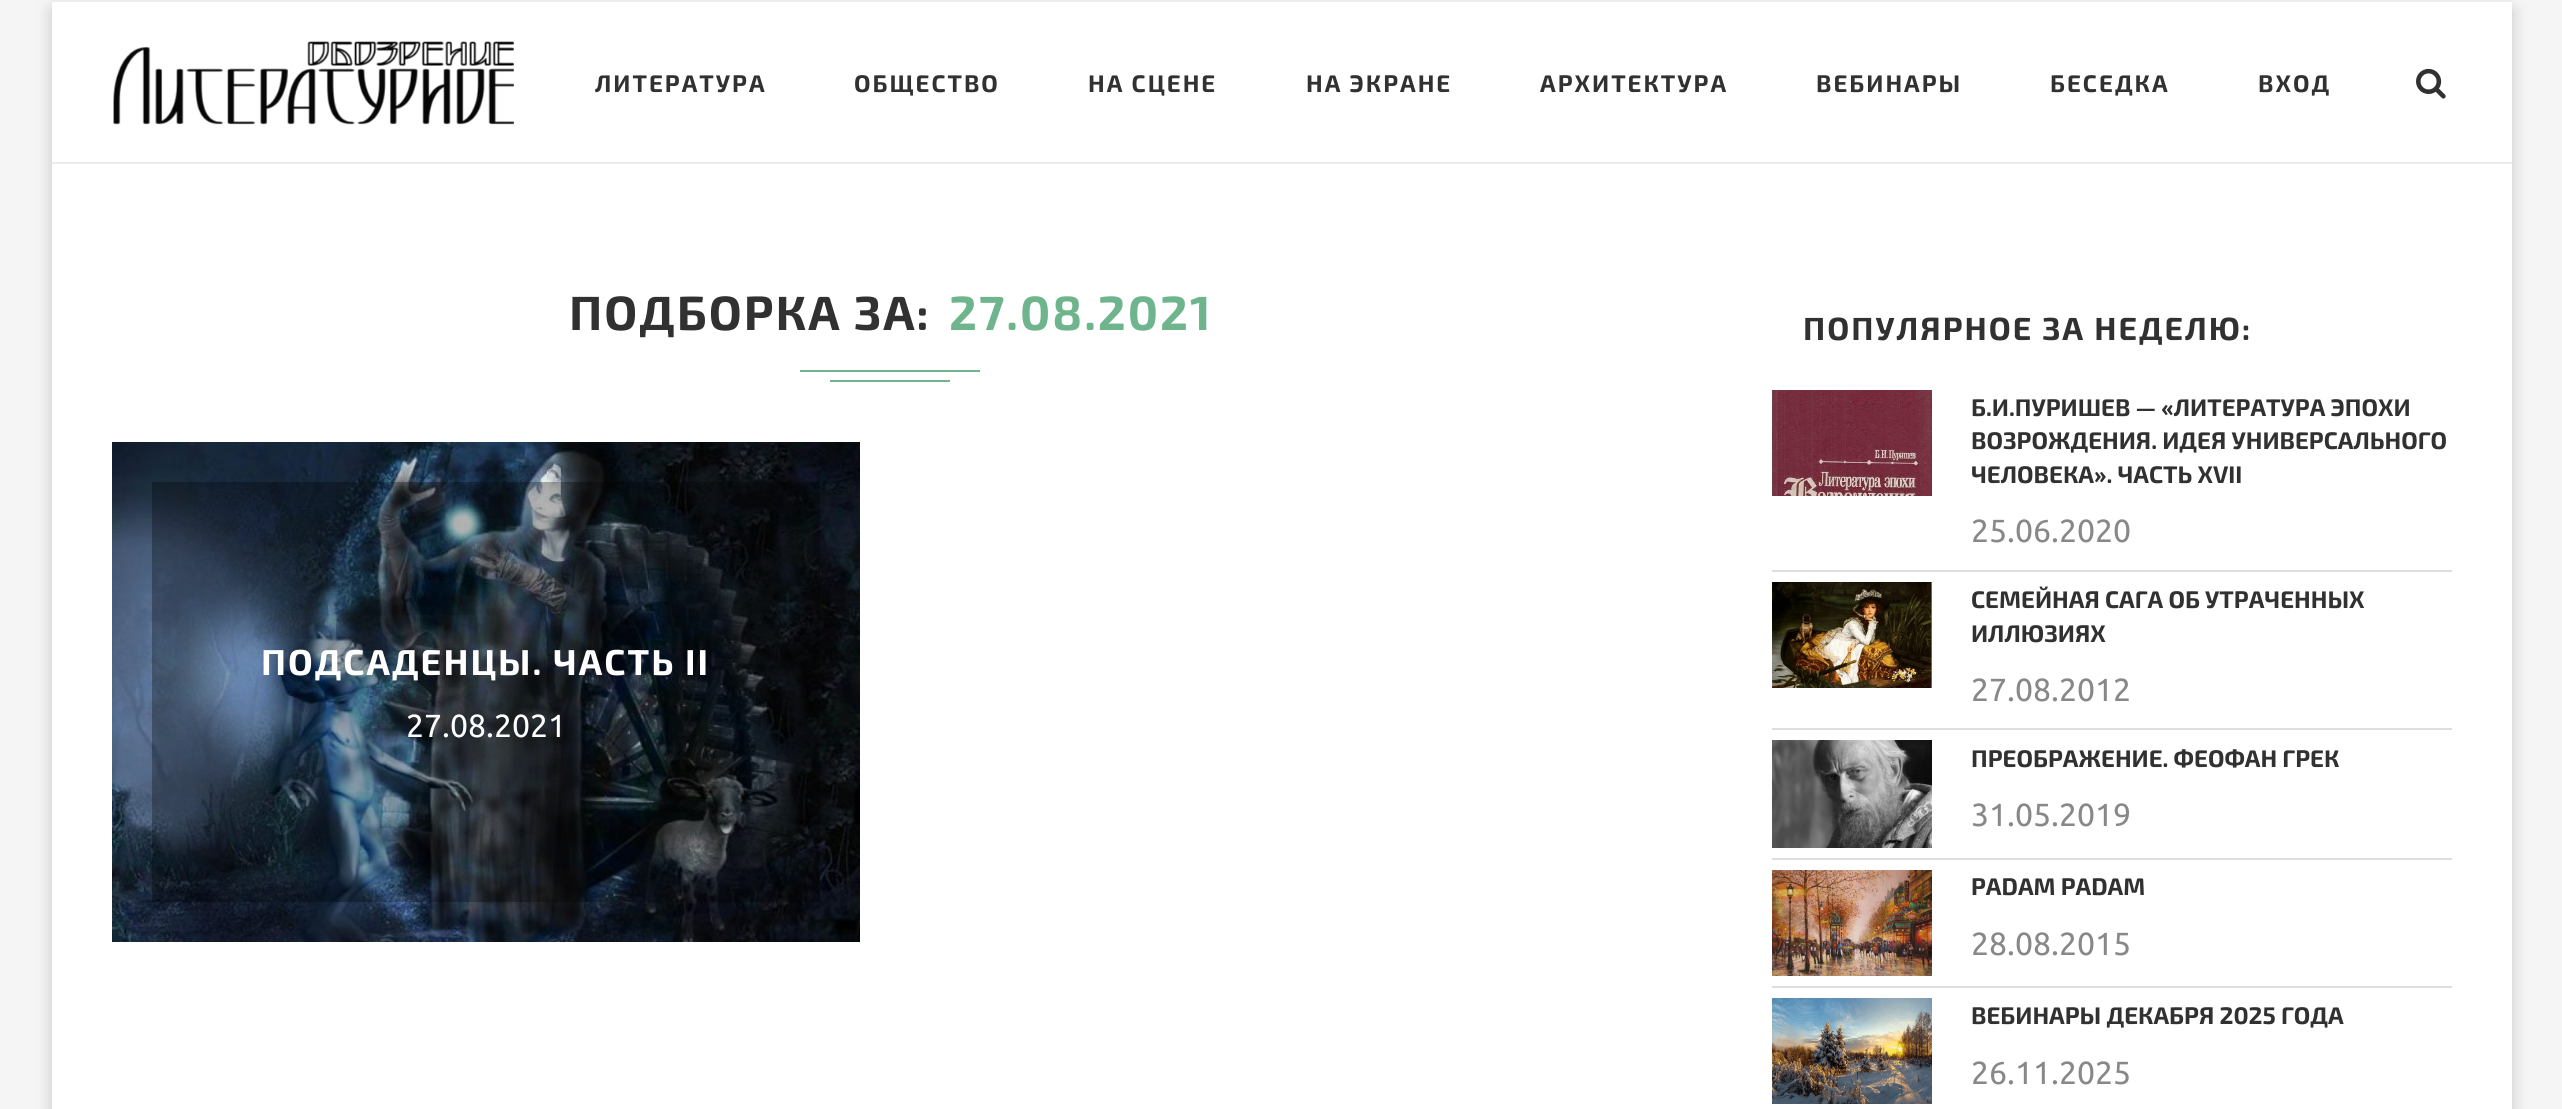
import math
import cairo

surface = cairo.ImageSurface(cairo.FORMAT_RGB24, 2562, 1109)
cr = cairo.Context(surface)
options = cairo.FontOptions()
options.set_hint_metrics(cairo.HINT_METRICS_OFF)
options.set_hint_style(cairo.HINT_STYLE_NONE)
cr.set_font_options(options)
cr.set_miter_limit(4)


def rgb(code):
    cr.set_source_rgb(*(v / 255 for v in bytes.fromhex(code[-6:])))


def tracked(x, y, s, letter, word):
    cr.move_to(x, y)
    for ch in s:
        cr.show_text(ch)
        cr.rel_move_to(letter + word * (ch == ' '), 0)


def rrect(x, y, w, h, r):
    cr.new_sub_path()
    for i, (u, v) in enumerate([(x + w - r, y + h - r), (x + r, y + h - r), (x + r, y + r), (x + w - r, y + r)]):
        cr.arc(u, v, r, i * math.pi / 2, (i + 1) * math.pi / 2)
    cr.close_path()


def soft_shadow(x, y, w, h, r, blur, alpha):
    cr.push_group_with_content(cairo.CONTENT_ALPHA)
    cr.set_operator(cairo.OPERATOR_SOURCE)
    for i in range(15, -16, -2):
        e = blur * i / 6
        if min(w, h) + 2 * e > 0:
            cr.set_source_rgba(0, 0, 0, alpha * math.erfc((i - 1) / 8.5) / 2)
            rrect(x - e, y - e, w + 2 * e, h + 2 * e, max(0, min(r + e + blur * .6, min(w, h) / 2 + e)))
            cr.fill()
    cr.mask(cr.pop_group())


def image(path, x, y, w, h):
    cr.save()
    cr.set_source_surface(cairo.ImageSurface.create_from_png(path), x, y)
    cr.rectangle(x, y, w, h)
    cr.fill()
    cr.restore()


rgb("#f5f5f5")
cr.paint()
rgb("#000000")
soft_shadow(52, 10, 2460, 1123, 0, 8, 0.2)
for x, y, w, h, color in [
    (52, 2, 2460, 1107, "#ffffff"),
    (52, 0, 2460, 2, "#ececec"),
    (52, 162, 2460, 2, "#ececec"),
]:
    rgb(color)
    cr.rectangle(x, y, w, h)
    cr.fill()
image("img/1.png", 113, 41, 401, 84)
image("img/2.png", 2416, 68, 30, 31)
rgb("#6eb48c")
cr.rectangle(800, 370, 180, 2)
cr.fill()
cr.rectangle(830, 380, 120, 2)
cr.fill()
image("img/3.png", 112, 442, 748, 500)
cr.set_source_rgba(0, 0, 0, 0.3)
cr.rectangle(152, 482, 668, 420)
cr.fill()
rgb("#dedede")
cr.rectangle(1772, 570, 680, 2)
cr.fill()
image("img/4.png", 1772, 390, 160, 106)
cr.rectangle(1772, 728, 680, 2)
cr.fill()
image("img/5.png", 1772, 582, 160, 106)
cr.rectangle(1772, 858, 680, 2)
cr.fill()
image("img/6.png", 1772, 740, 160, 108)
cr.rectangle(1772, 986, 680, 2)
cr.fill()
image("img/7.png", 1772, 870, 160, 106)
image("img/8.png", 1772, 998, 160, 106)
cr.select_font_face("Exo 2", cairo.FONT_SLANT_NORMAL, cairo.FONT_WEIGHT_BOLD)
cr.set_font_size(24)
rgb("#313131")
for x, y, s in [
    (595, 92, "ЛИТЕРАТУРА"),
    (854, 92, "ОБЩЕСТВО"),
    (1088, 92, "НА СЦЕНЕ"),
    (1306, 92, "НА ЭКРАНЕ"),
    (1540, 92, "АРХИТЕКТУРА"),
    (1816, 92, "ВЕБИНАРЫ"),
    (2050, 92, "БЕСЕДКА"),
    (2258, 92, "ВХОД"),
]:
    tracked(x, y, s, 2, 0)
cr.set_font_size(48)
tracked(569, 330, "ПОДБОРКА ЗА:", 2, 0)
rgb("#6eb48c")
tracked(949, 330, "27.08.2021", 2, 0)
cr.set_font_size(36)
rgb("#ffffff")
tracked(261, 675, "ПОДСАДЕНЦЫ. ЧАСТЬ II", 2, 0)
cr.select_font_face("Ubuntu")
cr.set_font_size(32)
cr.move_to(406, 737)
cr.show_text("27.08.2021")
cr.select_font_face("Exo 2", cairo.FONT_SLANT_NORMAL, cairo.FONT_WEIGHT_BOLD)
rgb("#313131")
tracked(1803, 340, "ПОПУЛЯРНОЕ ЗА НЕДЕЛЮ:", 2, 0)
cr.set_font_size(24)
for x, y, s in [
    (1971, 416, "Б.И.ПУРИШЕВ — «ЛИТЕРАТУРА ЭПОХИ"),
    (1971, 449, "ВОЗРОЖДЕНИЯ. ИДЕЯ УНИВЕРСАЛЬНОГО"),
    (1971, 483, "ЧЕЛОВЕКА». ЧАСТЬ XVII"),
]:
    cr.move_to(x, y)
    cr.show_text(s)
cr.select_font_face("Ubuntu")
cr.set_font_size(32)
rgb("#888888")
cr.move_to(1971, 542)
cr.show_text("25.06.2020")
cr.select_font_face("Exo 2", cairo.FONT_SLANT_NORMAL, cairo.FONT_WEIGHT_BOLD)
cr.set_font_size(24)
rgb("#313131")
cr.move_to(1971, 608)
cr.show_text("СЕМЕЙНАЯ САГА ОБ УТРАЧЕННЫХ")
cr.move_to(1971, 642)
cr.show_text("ИЛЛЮЗИЯХ")
cr.select_font_face("Ubuntu")
cr.set_font_size(32)
rgb("#888888")
cr.move_to(1971, 701)
cr.show_text("27.08.2012")
cr.select_font_face("Exo 2", cairo.FONT_SLANT_NORMAL, cairo.FONT_WEIGHT_BOLD)
cr.set_font_size(24)
rgb("#313131")
cr.move_to(1971, 767)
cr.show_text("ПРЕОБРАЖЕНИЕ. ФЕОФАН ГРЕК")
cr.select_font_face("Ubuntu")
cr.set_font_size(32)
rgb("#888888")
cr.move_to(1971, 826)
cr.show_text("31.05.2019")
cr.select_font_face("Exo 2", cairo.FONT_SLANT_NORMAL, cairo.FONT_WEIGHT_BOLD)
cr.set_font_size(24)
rgb("#313131")
cr.move_to(1971, 895)
cr.show_text("PADAM PADAM")
cr.select_font_face("Ubuntu")
cr.set_font_size(32)
rgb("#888888")
cr.move_to(1971, 955)
cr.show_text("28.08.2015")
cr.select_font_face("Exo 2", cairo.FONT_SLANT_NORMAL, cairo.FONT_WEIGHT_BOLD)
cr.set_font_size(24)
rgb("#313131")
cr.move_to(1971, 1024)
cr.show_text("ВЕБИНАРЫ ДЕКАБРЯ 2025 ГОДА")
cr.select_font_face("Ubuntu")
cr.set_font_size(32)
rgb("#888888")
cr.move_to(1971, 1084)
cr.show_text("26.11.2025")
surface.write_to_png("page.png")
